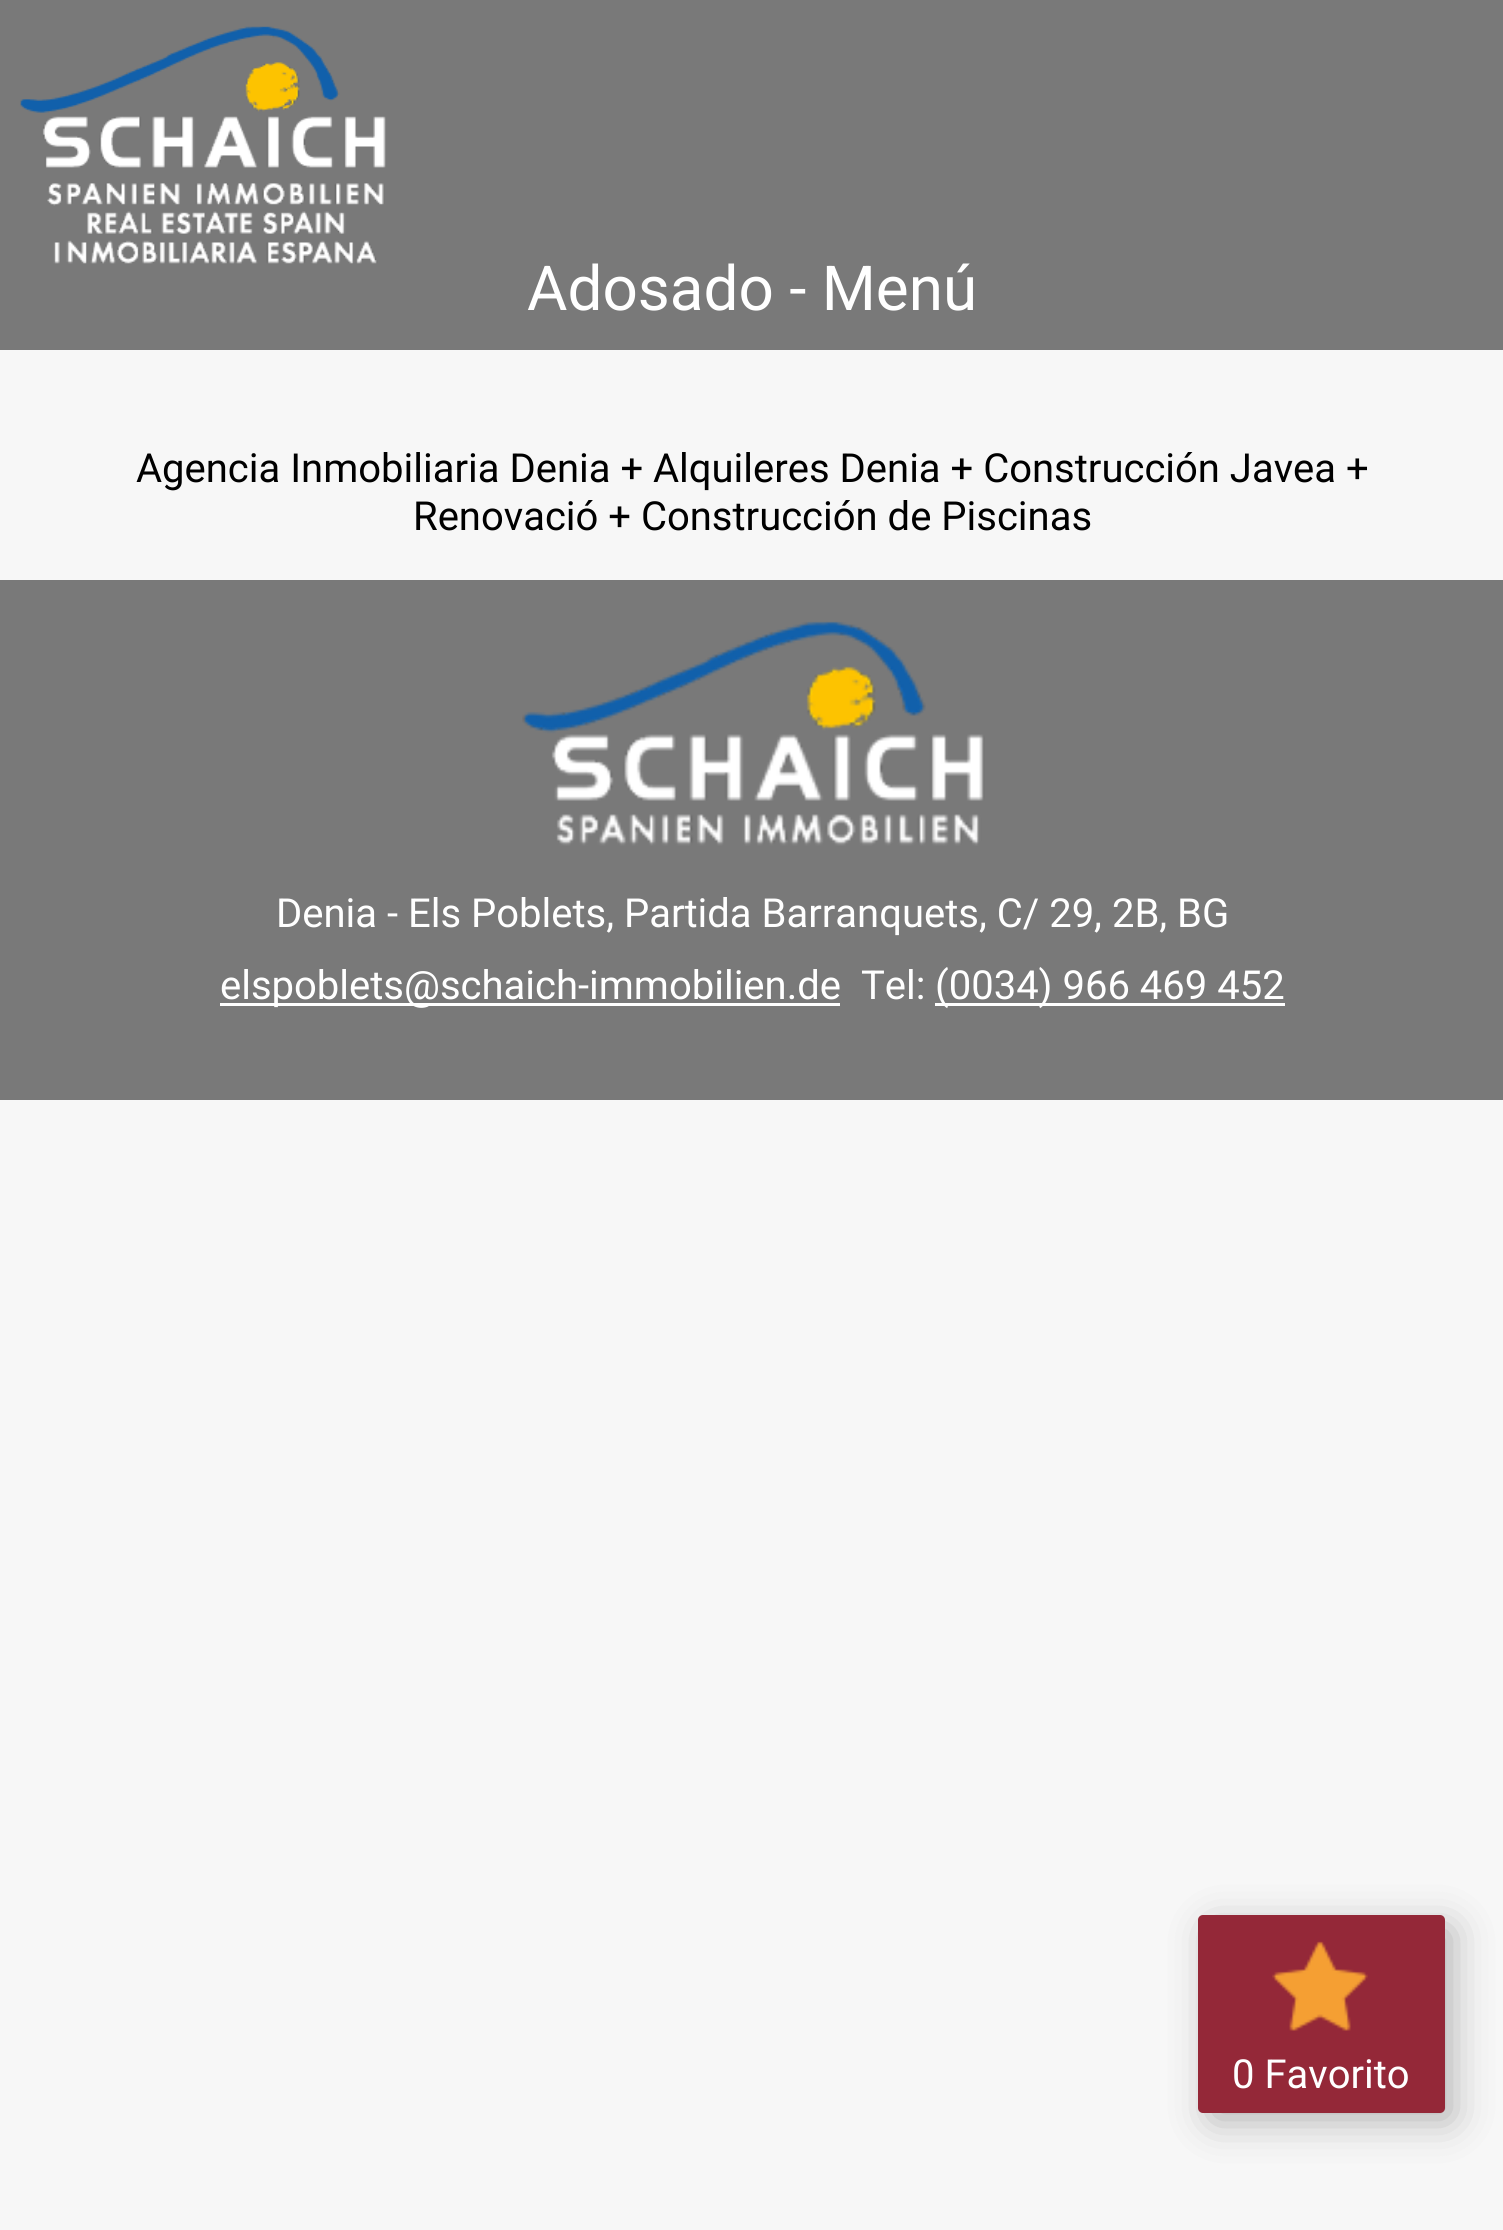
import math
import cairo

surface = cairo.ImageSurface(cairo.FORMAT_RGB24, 1503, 2230)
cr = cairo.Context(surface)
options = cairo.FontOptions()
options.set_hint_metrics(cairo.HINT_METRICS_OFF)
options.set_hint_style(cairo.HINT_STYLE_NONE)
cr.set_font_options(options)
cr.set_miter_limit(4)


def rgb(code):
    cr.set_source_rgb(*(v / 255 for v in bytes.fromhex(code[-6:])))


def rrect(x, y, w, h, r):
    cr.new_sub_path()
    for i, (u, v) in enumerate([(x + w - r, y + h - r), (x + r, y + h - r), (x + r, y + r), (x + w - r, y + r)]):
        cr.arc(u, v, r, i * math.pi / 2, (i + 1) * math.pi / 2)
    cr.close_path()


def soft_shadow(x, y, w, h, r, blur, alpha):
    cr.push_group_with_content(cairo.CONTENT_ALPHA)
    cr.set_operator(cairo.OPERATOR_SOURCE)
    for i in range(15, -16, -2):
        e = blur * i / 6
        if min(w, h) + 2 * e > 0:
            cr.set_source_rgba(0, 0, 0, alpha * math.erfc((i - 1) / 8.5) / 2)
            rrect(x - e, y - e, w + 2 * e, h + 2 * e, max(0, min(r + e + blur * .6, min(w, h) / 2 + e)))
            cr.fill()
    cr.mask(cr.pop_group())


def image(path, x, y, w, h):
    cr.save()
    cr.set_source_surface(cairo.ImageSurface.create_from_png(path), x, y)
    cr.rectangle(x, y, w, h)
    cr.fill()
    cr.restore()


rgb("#f7f7f7")
cr.paint()
rgb("#797979")
cr.rectangle(0, 0, 1503, 350)
cr.fill()
image("img/1.png", 20, 26, 366, 238)
cr.rectangle(0, 580, 1503, 520)
cr.fill()
image("img/2.png", 522, 621, 463, 225)
rgb("#ffffff")
cr.rectangle(220, 1003, 620, 3)
cr.fill()
cr.rectangle(935, 1003, 350, 3)
cr.fill()
rgb("#191919")
soft_shadow(1213, 1930, 237, 188, 0, 21, 0.35)
rgb("#942838")
rrect(1198, 1915, 247, 198, 5)
cr.fill()
image("img/3.png", 1272, 1941, 96, 90)
cr.select_font_face("Roboto")
cr.set_font_size(62)
rgb("#ffffff")
cr.move_to(527, 310)
cr.show_text("Adosado - Menú")
cr.set_font_size(40)
rgb("#000000")
cr.move_to(136, 482)
cr.show_text("Agencia Inmobiliaria Denia + Alquileres Denia + Construcción Javea +")
cr.move_to(413, 530)
cr.show_text("Renovació + Construcción de Piscinas")
rgb("#ffffff")
for x, y, s in [
    (276, 927, "Denia - Els Poblets, Partida Barranquets, C/ 29, 2B, BG"),
    (220, 999, "elspoblets@schaich-immobilien.de"),
    (861, 999, "Tel:"),
    (935, 999, "(0034) 966 469 452"),
    (1232, 2088, "0 Favorito"),
]:
    cr.move_to(x, y)
    cr.show_text(s)
surface.write_to_png("page.png")
